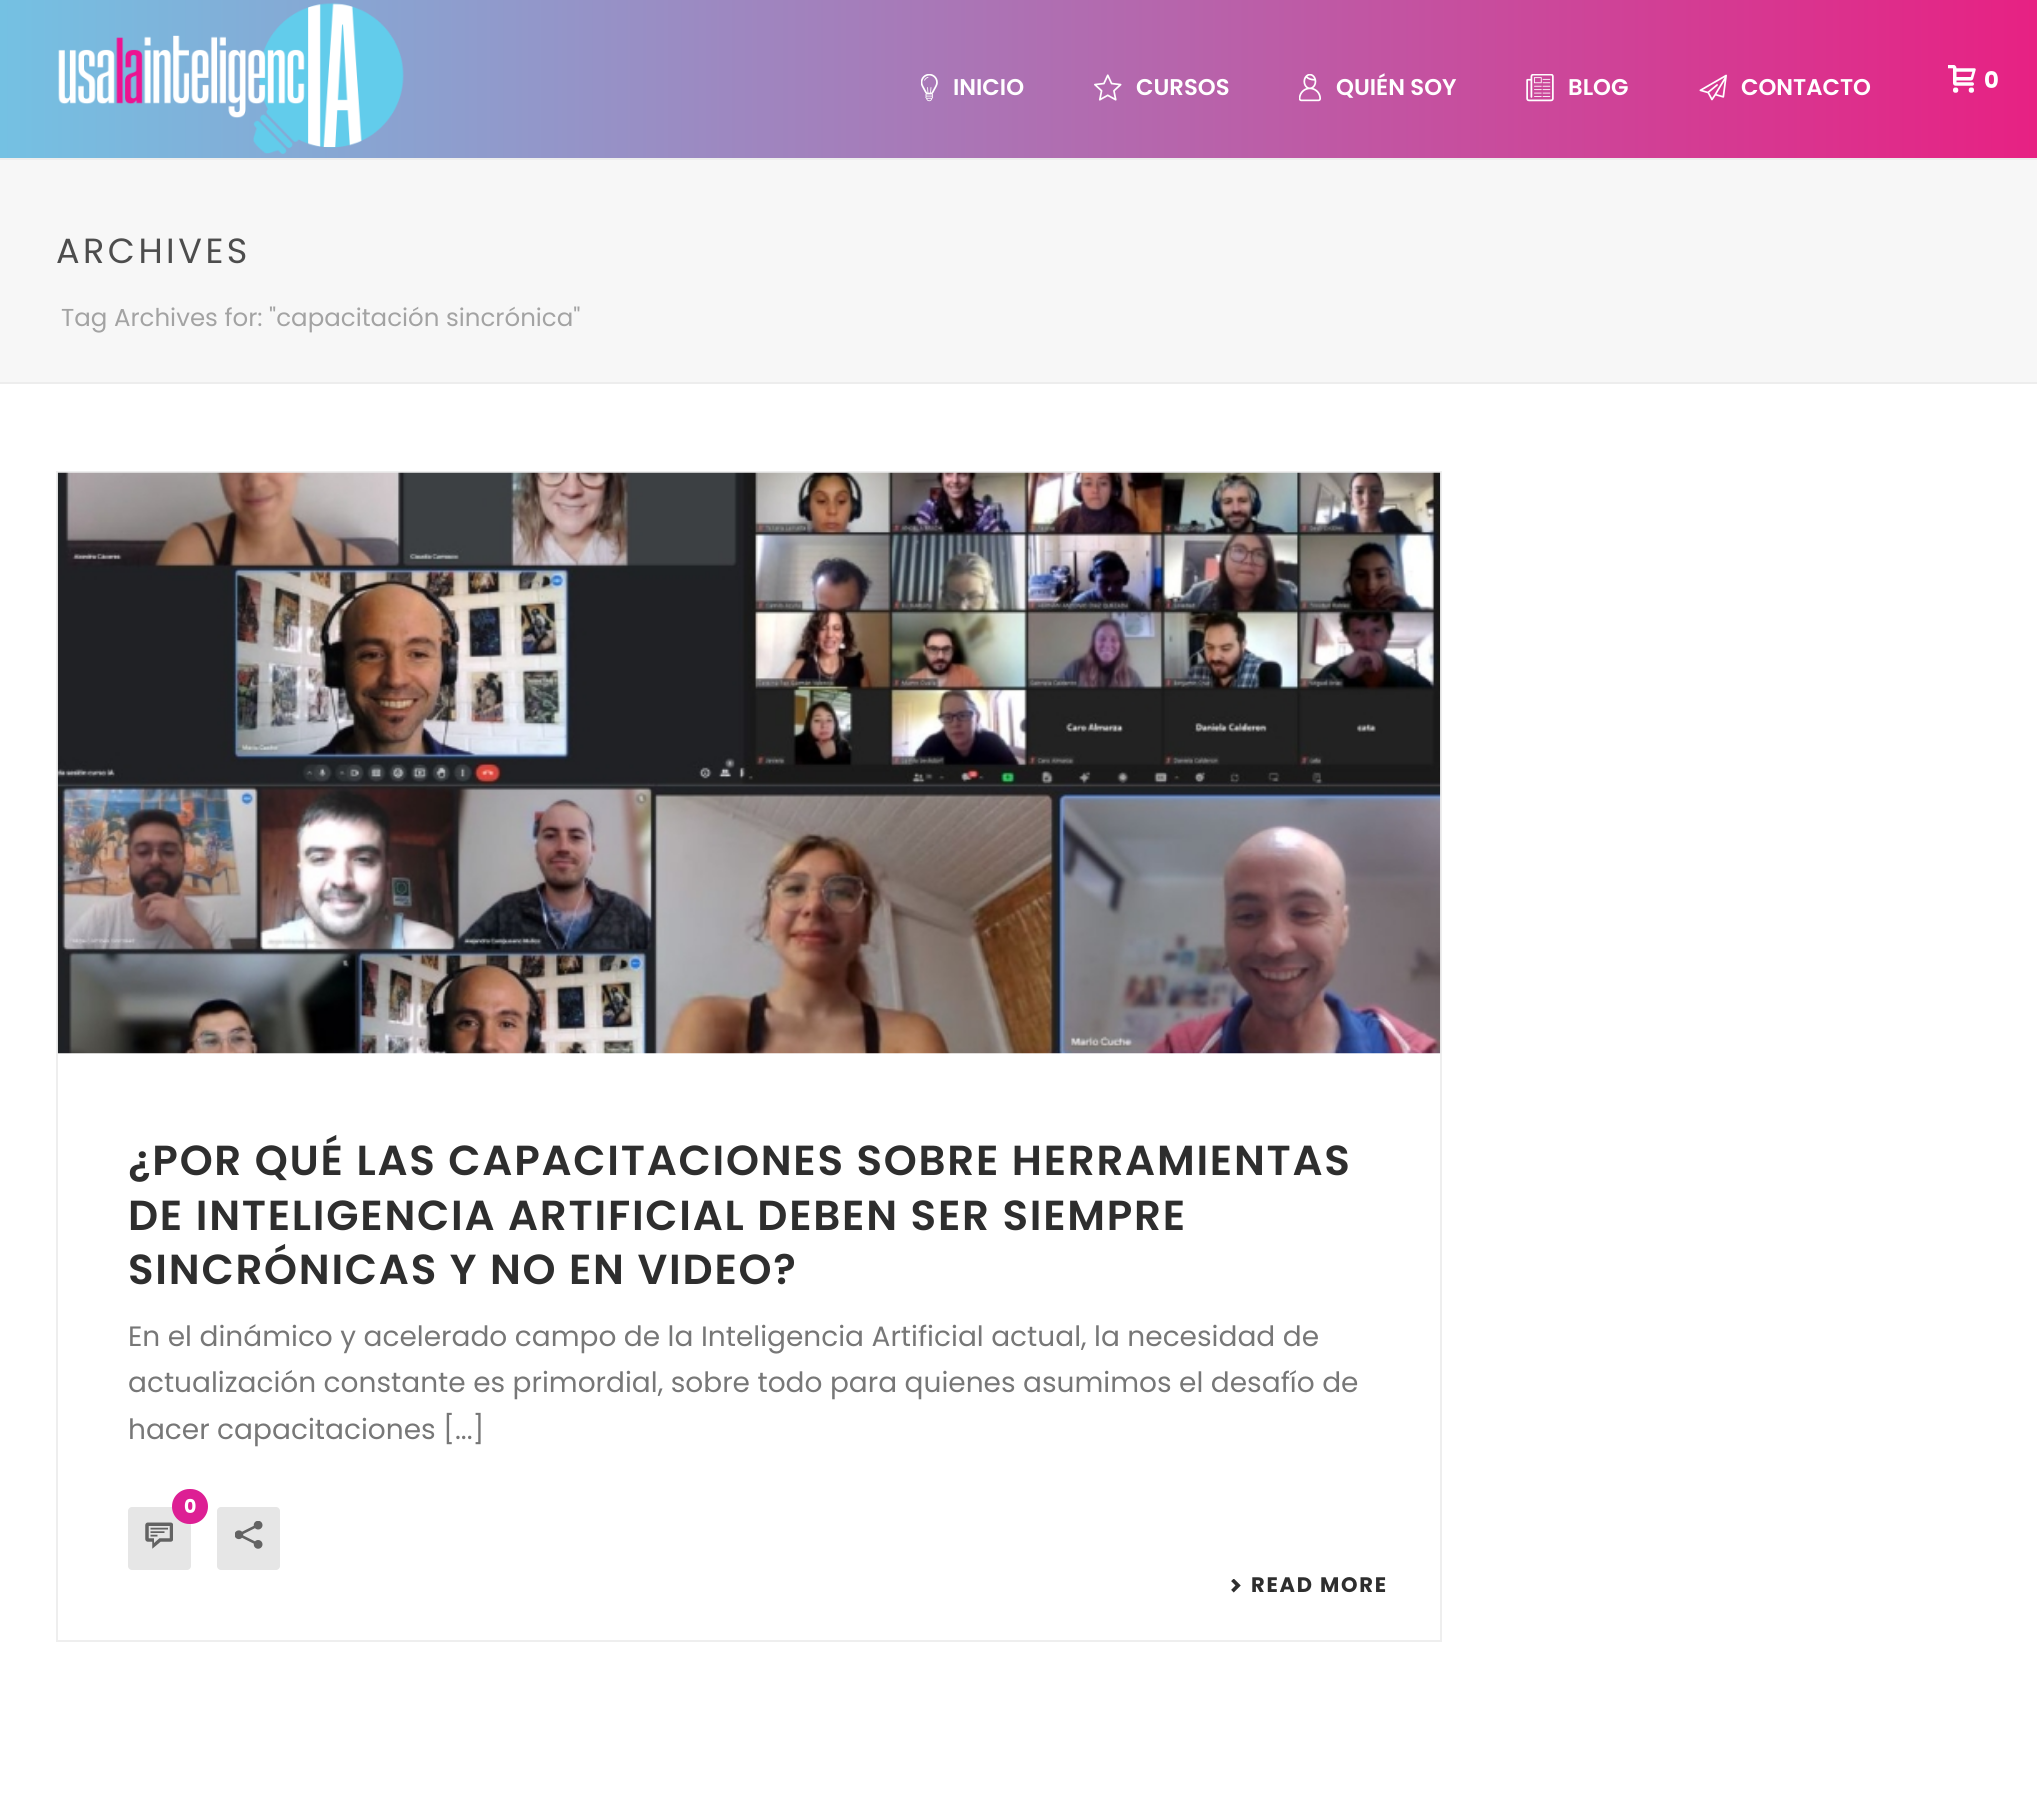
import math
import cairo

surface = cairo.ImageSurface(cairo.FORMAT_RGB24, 2037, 1798)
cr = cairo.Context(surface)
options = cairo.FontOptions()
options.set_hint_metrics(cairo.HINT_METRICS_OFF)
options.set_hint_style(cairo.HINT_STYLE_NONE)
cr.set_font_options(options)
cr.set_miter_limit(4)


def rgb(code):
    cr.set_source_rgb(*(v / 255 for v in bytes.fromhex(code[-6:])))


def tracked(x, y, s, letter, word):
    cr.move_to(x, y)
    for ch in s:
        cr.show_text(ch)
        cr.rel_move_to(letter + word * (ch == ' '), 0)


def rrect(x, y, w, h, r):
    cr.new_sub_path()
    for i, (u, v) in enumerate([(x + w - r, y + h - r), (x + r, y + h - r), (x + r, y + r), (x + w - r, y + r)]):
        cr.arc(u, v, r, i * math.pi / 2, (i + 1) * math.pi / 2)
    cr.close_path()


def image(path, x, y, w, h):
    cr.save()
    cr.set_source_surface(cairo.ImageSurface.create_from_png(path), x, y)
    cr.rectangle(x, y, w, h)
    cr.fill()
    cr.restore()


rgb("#ffffff")
cr.paint()
for x, y, w, h, color in [
    (0, 160, 2037, 222, "#f7f7f7"),
    (0, 382, 2037, 2, "#ededed"),
    (0, 158, 2037, 2, "#ededed"),
]:
    rgb(color)
    cr.rectangle(x, y, w, h)
    cr.fill()
gradient = cairo.LinearGradient(0, 79, 2037, 79)
gradient.add_color_stop_rgba(0, 0.455, 0.757, 0.89, 1)
gradient.add_color_stop_rgba(1, 0.906, 0.129, 0.514, 1)
cr.set_source(gradient)
cr.rectangle(0, 0, 2037, 158)
cr.fill()
image("img/1.png", 58, 3, 346, 151)
image("img/2.png", 921, 74, 17, 28)
image("img/3.png", 1094, 74, 28, 27)
image("img/4.png", 1299, 74, 22, 28)
image("img/5.png", 1526, 74, 28, 28)
image("img/6.png", 1699, 74, 28, 27)
image("img/7.png", 1948, 65, 28, 28)
cr.rectangle(57, 472, 1384, 1169)
rgb("#eeeeee")
cr.stroke()
image("img/8.png", 57, 472, 1384, 582)
rgb("#e6e6e6")
rrect(128, 1507, 63, 63, 4)
cr.fill()
image("img/9.png", 145, 1522, 28, 27)
rgb("#dd1f94")
rrect(172, 1489, 36, 35, 17.5)
cr.fill()
rgb("#e6e6e6")
rrect(217, 1507, 63, 63, 4)
cr.fill()
image("img/10.png", 235, 1521, 28, 28)
image("img/11.png", 1231, 1579, 10, 14)
cr.select_font_face("Poppins SemiBold")
cr.set_font_size(22.75)
rgb("#ffffff")
for x, y, s in [
    (953, 95, "INICIO"),
    (1136, 95, "CURSOS"),
    (1336, 95, "QUIÉN SOY"),
    (1568, 95, "BLOG"),
    (1741, 95, "CONTACTO"),
]:
    cr.move_to(x, y)
    cr.show_text(s)
cr.select_font_face("Poppins", cairo.FONT_SLANT_NORMAL, cairo.FONT_WEIGHT_BOLD)
cr.move_to(1984, 88)
cr.show_text("0")
cr.select_font_face("Poppins")
cr.set_font_size(35)
rgb("#4d4d4d")
tracked(56, 263, "ARCHIVES", 3.5, 0)
cr.set_font_size(24.5)
rgb("#a3a3a3")
cr.move_to(61, 326)
cr.show_text("Tag Archives for: \"capacitación sincrónica\"")
cr.select_font_face("Poppins SemiBold")
cr.set_font_size(42)
rgb("#2e2e2e")
for x, y, s in [
    (128, 1175, "¿POR QUÉ LAS CAPACITACIONES SOBRE HERRAMIENTAS"),
    (128, 1230, "DE INTELIGENCIA ARTIFICIAL DEBEN SER SIEMPRE"),
    (128, 1284, "SINCRÓNICAS Y NO EN VIDEO?"),
]:
    tracked(x, y, s, 1.75, 0)
cr.select_font_face("Poppins")
cr.set_font_size(28)
rgb("#777777")
for x, y, s in [
    (128, 1346, "En el dinámico y acelerado campo de la Inteligencia Artificial actual, la necesidad de"),
    (128, 1392, "actualización constante es primordial, sobre todo para quienes asumimos el desafío de"),
    (128, 1439, "hacer capacitaciones [...]"),
]:
    cr.move_to(x, y)
    cr.show_text(s)
cr.select_font_face("Poppins", cairo.FONT_SLANT_NORMAL, cairo.FONT_WEIGHT_BOLD)
cr.set_font_size(19)
rgb("#ffffff")
cr.move_to(184, 1513)
cr.show_text("0")
cr.set_font_size(21)
rgb("#2e2e2e")
tracked(1251, 1592, "READ MORE", 1.75, 0)
surface.write_to_png("page.png")
